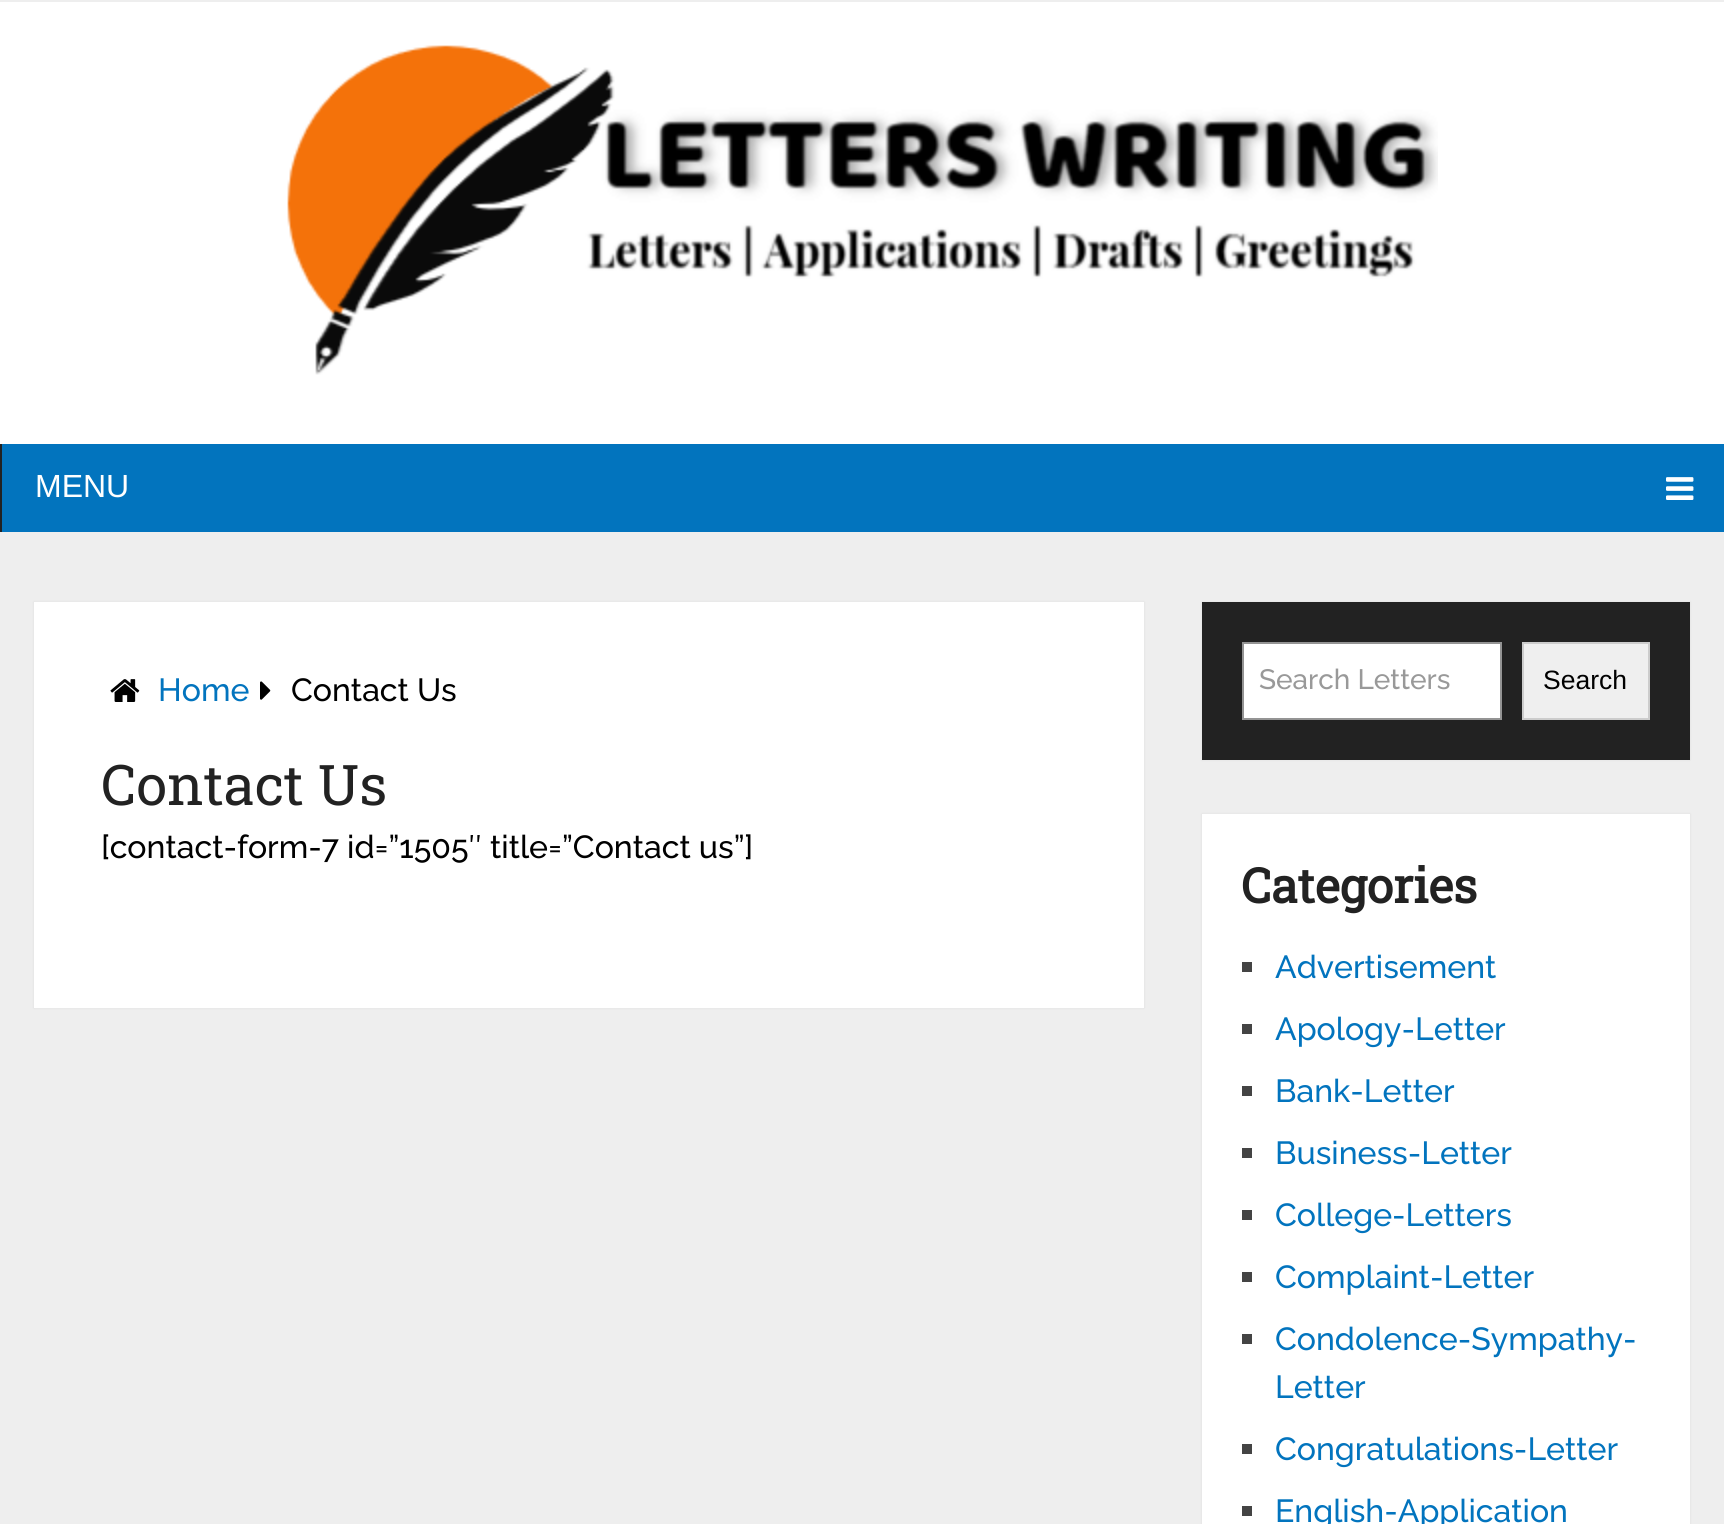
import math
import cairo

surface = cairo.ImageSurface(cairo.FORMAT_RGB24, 1724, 1524)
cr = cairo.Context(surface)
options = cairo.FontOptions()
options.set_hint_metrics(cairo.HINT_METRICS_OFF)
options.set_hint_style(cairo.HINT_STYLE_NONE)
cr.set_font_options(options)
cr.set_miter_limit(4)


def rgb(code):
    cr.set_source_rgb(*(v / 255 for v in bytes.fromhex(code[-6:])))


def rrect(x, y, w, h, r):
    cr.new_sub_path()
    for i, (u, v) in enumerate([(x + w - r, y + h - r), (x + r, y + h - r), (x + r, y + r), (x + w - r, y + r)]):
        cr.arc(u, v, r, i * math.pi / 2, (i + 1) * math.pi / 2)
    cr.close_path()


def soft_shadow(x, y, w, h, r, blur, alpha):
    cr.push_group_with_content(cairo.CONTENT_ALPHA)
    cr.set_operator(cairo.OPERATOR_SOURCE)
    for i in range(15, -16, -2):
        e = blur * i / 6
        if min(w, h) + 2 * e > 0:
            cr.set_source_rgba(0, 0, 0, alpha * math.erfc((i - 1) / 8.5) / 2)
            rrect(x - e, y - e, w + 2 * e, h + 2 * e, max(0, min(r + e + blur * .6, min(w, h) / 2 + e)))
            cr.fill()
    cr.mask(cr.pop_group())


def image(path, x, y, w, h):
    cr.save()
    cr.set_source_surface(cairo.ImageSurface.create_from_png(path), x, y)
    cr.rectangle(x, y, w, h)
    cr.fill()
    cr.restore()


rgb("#eeeeee")
cr.paint()
rgb("#ffffff")
cr.rectangle(0, 2, 1724, 442)
cr.fill()
image("img/1.png", 287, 45, 1151, 330)
rgb("#222222")
cr.rectangle(0, 444, 2, 88)
cr.fill()
rgb("#0274be")
cr.rectangle(2, 444, 1722, 88)
cr.fill()
image("img/2.png", 1666, 477, 28, 23)
rgb("#323232")
soft_shadow(34, 602, 1110, 406, 0, 1, 0.1)
rgb("#ffffff")
cr.rectangle(34, 602, 1110, 406)
cr.fill()
image("img/3.png", 110, 679, 30, 23)
image("img/4.png", 260, 681, 11, 19)
rgb("#323232")
soft_shadow(1202, 602, 488, 158, 0, 1, 0.1)
rgb("#222222")
cr.rectangle(1202, 602, 488, 158)
cr.fill()
rgb("#ffffff")
cr.rectangle(1243, 643, 258, 76)
cr.fill_preserve()
rgb("#949494")
cr.stroke()
rgb("#efefef")
cr.rectangle(1523, 643, 126, 76)
cr.fill_preserve()
rgb("#cccccc")
cr.stroke()
rgb("#323232")
soft_shadow(1202, 814, 488, 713, 0, 1, 0.1)
for x, y, w, h, color in [
    (1202, 814, 488, 710, "#ffffff"),
    (1242, 962, 10, 10, "#444444"),
    (1242, 1024, 10, 10, "#444444"),
    (1242, 1086, 10, 10, "#444444"),
    (1242, 1148, 10, 10, "#444444"),
    (1242, 1210, 10, 10, "#444444"),
    (1242, 1272, 10, 10, "#444444"),
    (1242, 1334, 10, 10, "#444444"),
    (1242, 1444, 10, 10, "#444444"),
    (1242, 1506, 10, 10, "#444444"),
]:
    rgb(color)
    cr.rectangle(x, y, w, h)
    cr.fill()
cr.select_font_face("Liberation Sans")
cr.set_font_size(32)
rgb("#ffffff")
cr.move_to(35, 497)
cr.show_text("MENU")
cr.select_font_face("Raleway Thin")
rgb("#0274be")
cr.move_to(158, 701)
cr.show_text("Home")
rgb("#000000")
cr.move_to(291, 701)
cr.show_text("Contact Us")
cr.select_font_face("Roboto Slab")
cr.set_font_size(56)
rgb("#222222")
cr.move_to(101, 805)
cr.show_text("Contact Us")
cr.select_font_face("Raleway Thin")
cr.set_font_size(32)
rgb("#000000")
cr.move_to(101, 858)
cr.show_text("[contact-form-7 id=”1505″ title=”Contact us”]")
cr.set_font_size(28)
rgb("#999999")
cr.move_to(1259, 689)
cr.show_text("Search Letters")
cr.select_font_face("Liberation Sans")
cr.set_font_size(26.5)
rgb("#000000")
cr.move_to(1543, 689)
cr.show_text("Search")
cr.select_font_face("Roboto Slab", cairo.FONT_SLANT_NORMAL, cairo.FONT_WEIGHT_BOLD)
cr.set_font_size(48)
rgb("#222222")
cr.move_to(1241, 903)
cr.show_text("Categories")
cr.select_font_face("Raleway Thin")
cr.set_font_size(32)
rgb("#0274be")
for x, y, s in [
    (1275, 978, "Advertisement"),
    (1275, 1040, "Apology-Letter"),
    (1275, 1102, "Bank-Letter"),
    (1275, 1164, "Business-Letter"),
    (1275, 1226, "College-Letters"),
    (1275, 1288, "Complaint-Letter"),
    (1275, 1350, "Condolence-Sympathy-"),
    (1275, 1398, "Letter"),
    (1275, 1460, "Congratulations-Letter"),
    (1275, 1522, "English-Application"),
]:
    cr.move_to(x, y)
    cr.show_text(s)
surface.write_to_png("page.png")
